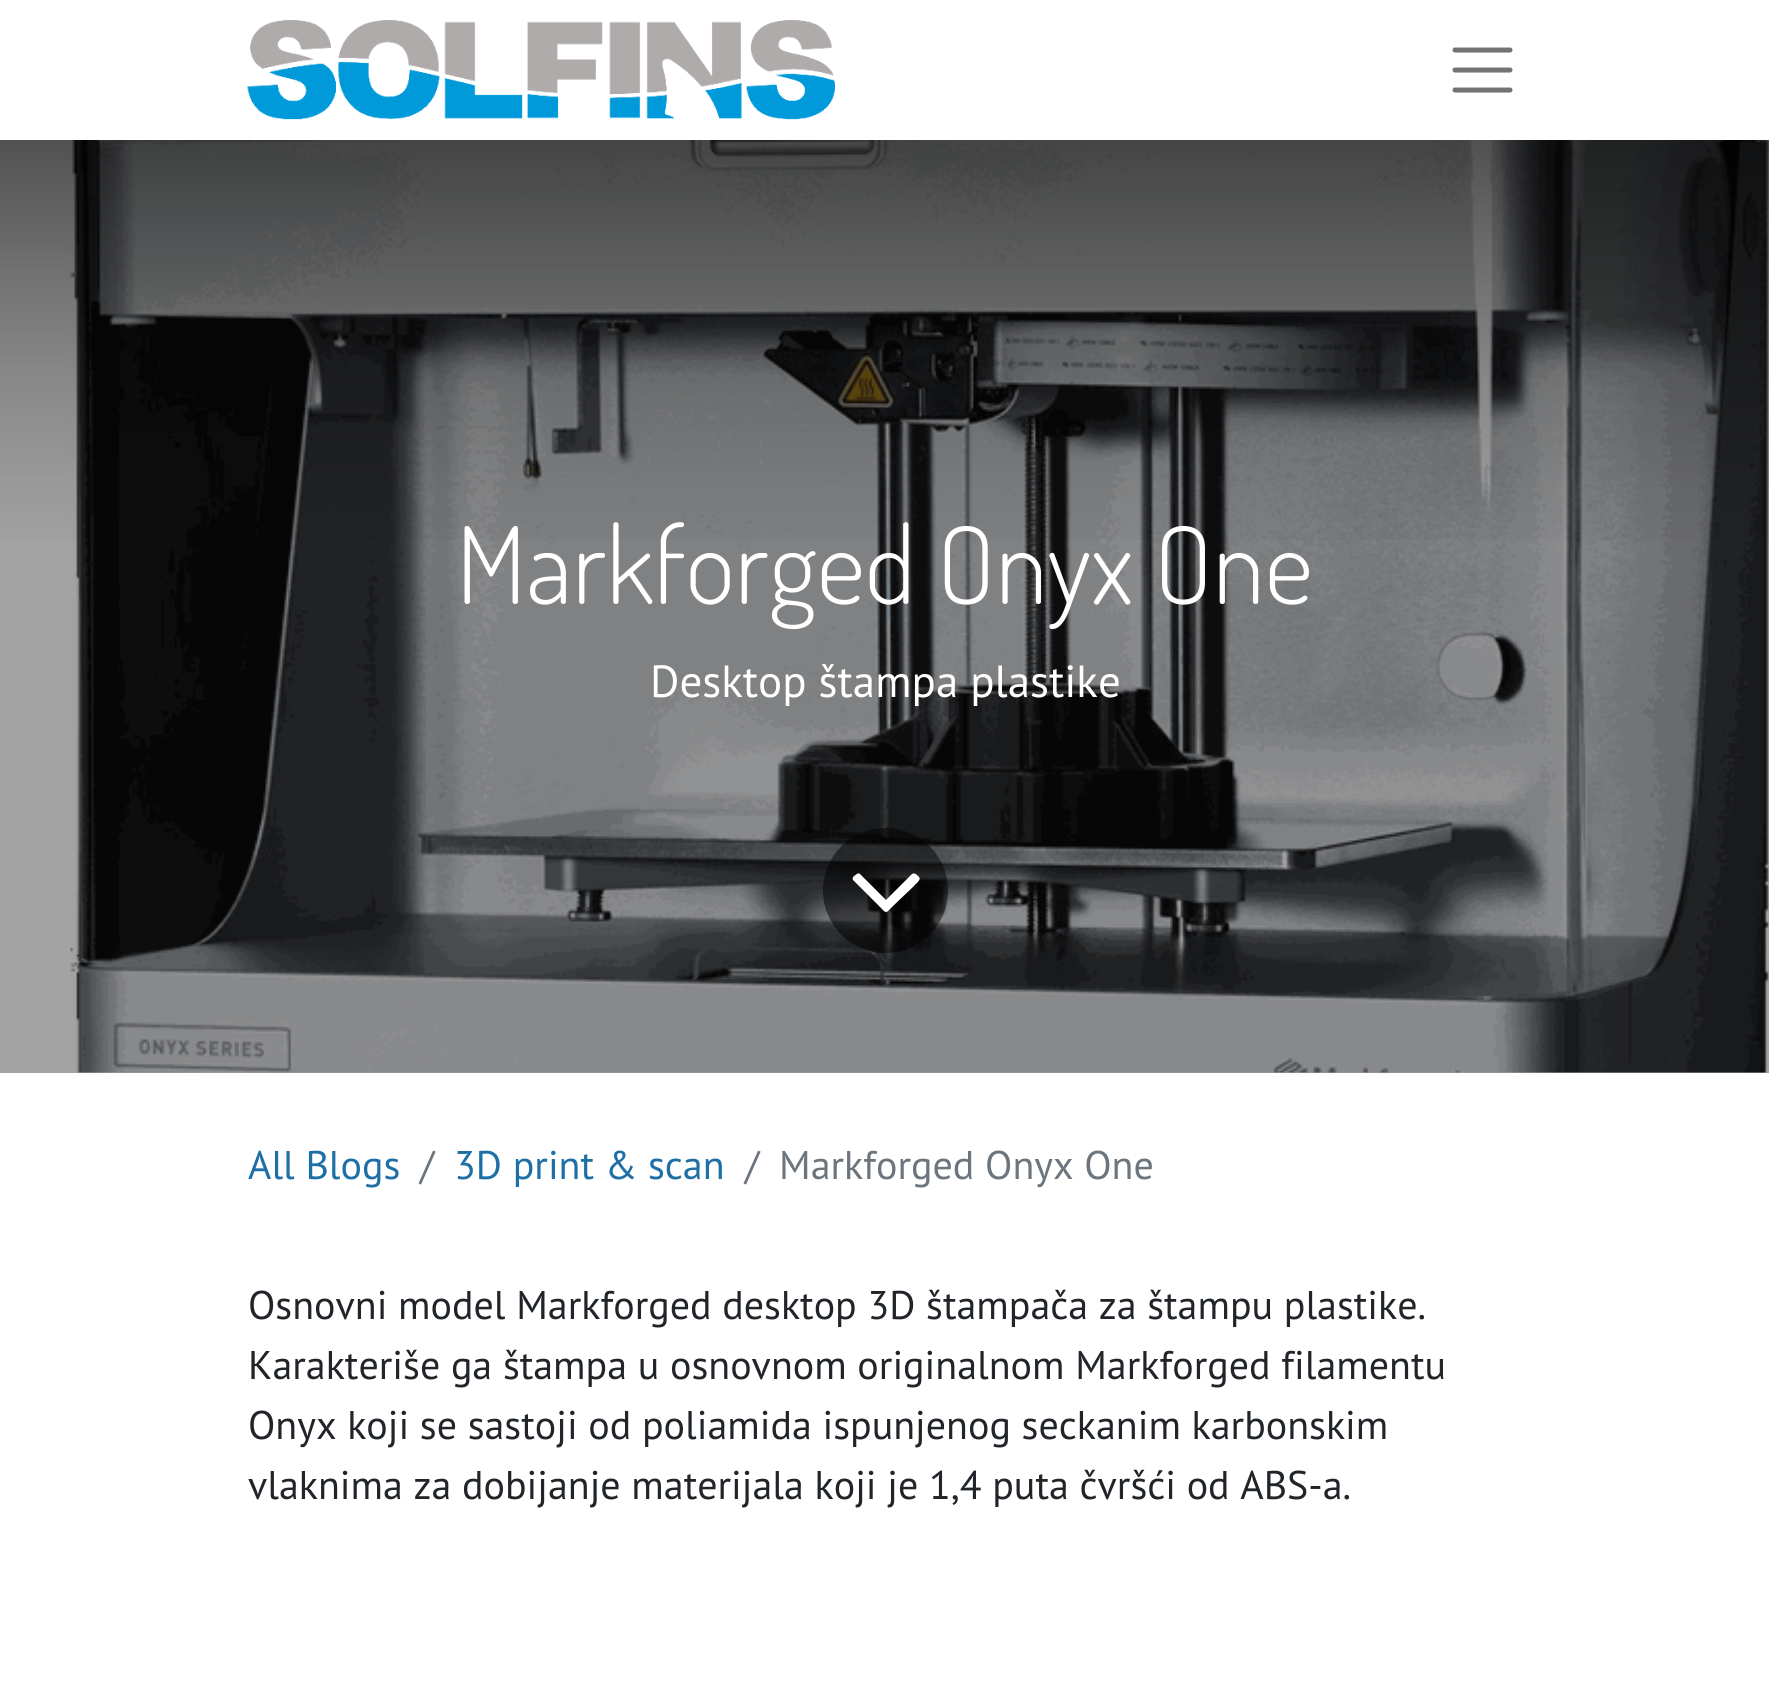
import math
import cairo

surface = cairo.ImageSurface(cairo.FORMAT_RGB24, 1769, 1696)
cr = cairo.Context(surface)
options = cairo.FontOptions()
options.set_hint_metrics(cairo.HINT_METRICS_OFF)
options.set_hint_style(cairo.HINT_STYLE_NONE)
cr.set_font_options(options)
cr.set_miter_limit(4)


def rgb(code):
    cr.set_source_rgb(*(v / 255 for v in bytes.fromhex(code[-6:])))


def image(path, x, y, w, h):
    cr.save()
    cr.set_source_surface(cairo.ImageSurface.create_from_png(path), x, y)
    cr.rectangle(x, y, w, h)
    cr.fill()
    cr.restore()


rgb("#ffffff")
cr.paint()
rgb("#a3a3a3")
cr.rectangle(0, 140, 1769, 933)
cr.fill()
image("img/1.png", 247, 20, 588, 100)
cr.new_path()
cr.move_to(1455, 50)
cr.line_to(1510, 50)
cr.move_to(1455, 70)
cr.line_to(1510, 70)
cr.move_to(1455, 90)
cr.line_to(1510, 90)
rgb("#737373")
cr.set_line_width(5)
cr.set_line_cap(cairo.LINE_CAP_ROUND)
cr.stroke()
image("img/2.png", 70, 140, 1699, 933)
gradient = cairo.LinearGradient(885, 140, 885, 608)
gradient.add_color_stop_rgba(0, 0, 0, 0, 0.5)
gradient.add_color_stop_rgba(0.19, 0, 0, 0, 0.37)
gradient.add_color_stop_rgba(0.34, 0, 0, 0, 0.27)
gradient.add_color_stop_rgba(0.47, 0, 0, 0, 0.19)
gradient.add_color_stop_rgba(0.56, 0, 0, 0, 0.14)
gradient.add_color_stop_rgba(0.65, 0, 0, 0, 0.1)
gradient.add_color_stop_rgba(0.73, 0, 0, 0, 0.06)
gradient.add_color_stop_rgba(0.8, 0, 0, 0, 0.04)
gradient.add_color_stop_rgba(0.86, 0, 0, 0, 0.02)
gradient.add_color_stop_rgba(0.91, 0, 0, 0, 0.01)
gradient.add_color_stop_rgba(0.95, 0, 0, 0, 0)
gradient.add_color_stop_rgba(0.98, 0, 0, 0, 0)
gradient.add_color_stop_rgba(1, 0, 0, 0, 0)
cr.set_source(gradient)
cr.rectangle(0, 140, 1769, 400)
cr.fill()
cr.set_source_rgba(0, 0, 0, 0.5)
cr.arc(885.5, 890.5, 62.5, 0, 2 * math.pi)
cr.fill()
rgb("#ffffff")
cr.new_path()
cr.move_to(919, 877)
cr.curve_to(922, 880, 914, 885, 914, 886)
cr.line_to(893, 906)
cr.curve_to(885, 914, 887, 914, 879, 906)
cr.line_to(853, 880)
cr.curve_to(852, 879, 853, 877, 854, 876)
cr.curve_to(856, 875, 858, 872, 860, 874)
cr.line_to(886, 900)
cr.line_to(912, 874)
cr.curve_to(915, 872, 918, 876, 919, 877)
cr.close_path()
cr.fill()
cr.select_font_face("Dosis Light")
cr.set_font_size(106.75)
cr.move_to(456, 604)
cr.show_text("Markforged Onyx One")
cr.select_font_face("PT Sans")
cr.set_font_size(45)
cr.move_to(650, 697)
cr.show_text("Desktop štampa plastike")
cr.set_font_size(40)
rgb("#1d6fa5")
cr.move_to(248, 1179)
cr.show_text("All Blogs")
rgb("#6c757d")
cr.move_to(420, 1179)
cr.show_text("/")
rgb("#1d6fa5")
cr.move_to(454, 1179)
cr.show_text("3D print & scan")
rgb("#6c757d")
cr.move_to(745, 1179)
cr.show_text("/")
cr.move_to(779, 1179)
cr.show_text("Markforged Onyx One")
rgb("#212529")
for x, y, s in [
    (248, 1319, "Osnovni model Markforged desktop 3D štampača za štampu plastike."),
    (248, 1379, "Karakteriše ga štampa u osnovnom originalnom Markforged filamentu"),
    (248, 1439, "Onyx koji se sastoji od poliamida ispunjenog seckanim karbonskim"),
    (248, 1499, "vlaknima za dobijanje materijala koji je 1,4 puta čvršći od ABS-a."),
]:
    cr.move_to(x, y)
    cr.show_text(s)
surface.write_to_png("page.png")
